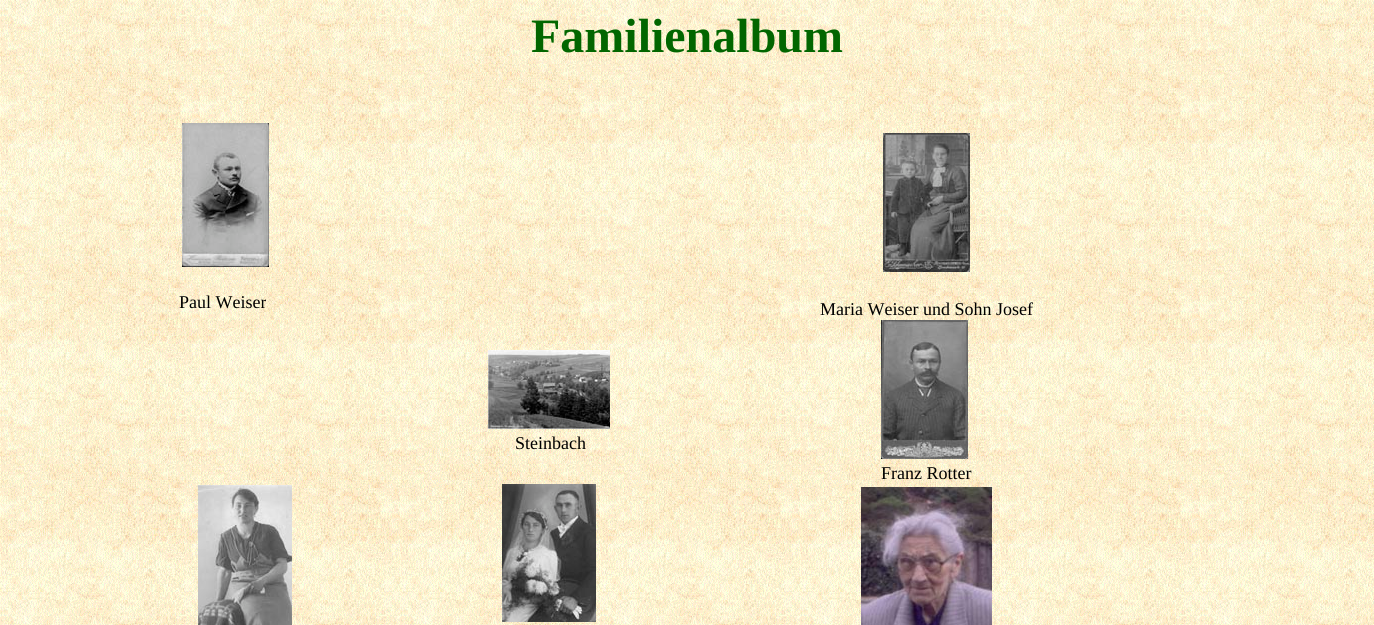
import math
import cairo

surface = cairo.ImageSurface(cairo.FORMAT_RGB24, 1374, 625)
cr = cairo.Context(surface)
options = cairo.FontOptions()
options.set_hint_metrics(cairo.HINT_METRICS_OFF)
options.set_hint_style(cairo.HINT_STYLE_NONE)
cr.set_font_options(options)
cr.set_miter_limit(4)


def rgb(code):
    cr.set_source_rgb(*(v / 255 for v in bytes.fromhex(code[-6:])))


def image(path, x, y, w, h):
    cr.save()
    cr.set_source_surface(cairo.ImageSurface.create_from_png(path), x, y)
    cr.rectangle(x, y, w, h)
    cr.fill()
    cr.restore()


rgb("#ffffff")
cr.paint()
image("img/1.png", 0, 0, 1374, 625)
image("img/2.png", 182, 123, 87, 144)
image("img/3.png", 883, 133, 87, 139)
image("img/4.png", 488, 350, 122, 79)
image("img/5.png", 881, 320, 87, 139)
image("img/6.png", 198, 485, 94, 140)
image("img/7.png", 502, 484, 94, 138)
image("img/8.png", 861, 487, 131, 138)
cr.select_font_face("Liberation Serif", cairo.FONT_SLANT_NORMAL, cairo.FONT_WEIGHT_BOLD)
cr.set_font_size(48)
rgb("#026600")
cr.move_to(531, 52)
cr.show_text("Familienalbum")
cr.select_font_face("Liberation Serif")
cr.set_font_size(18)
rgb("#000000")
for x, y, s in [
    (179, 308, "Paul Weiser"),
    (820, 315, "Maria Weiser und Sohn Josef"),
    (515, 449, "Steinbach"),
    (881, 479, "Franz Rotter"),
]:
    cr.move_to(x, y)
    cr.show_text(s)
surface.write_to_png("page.png")
